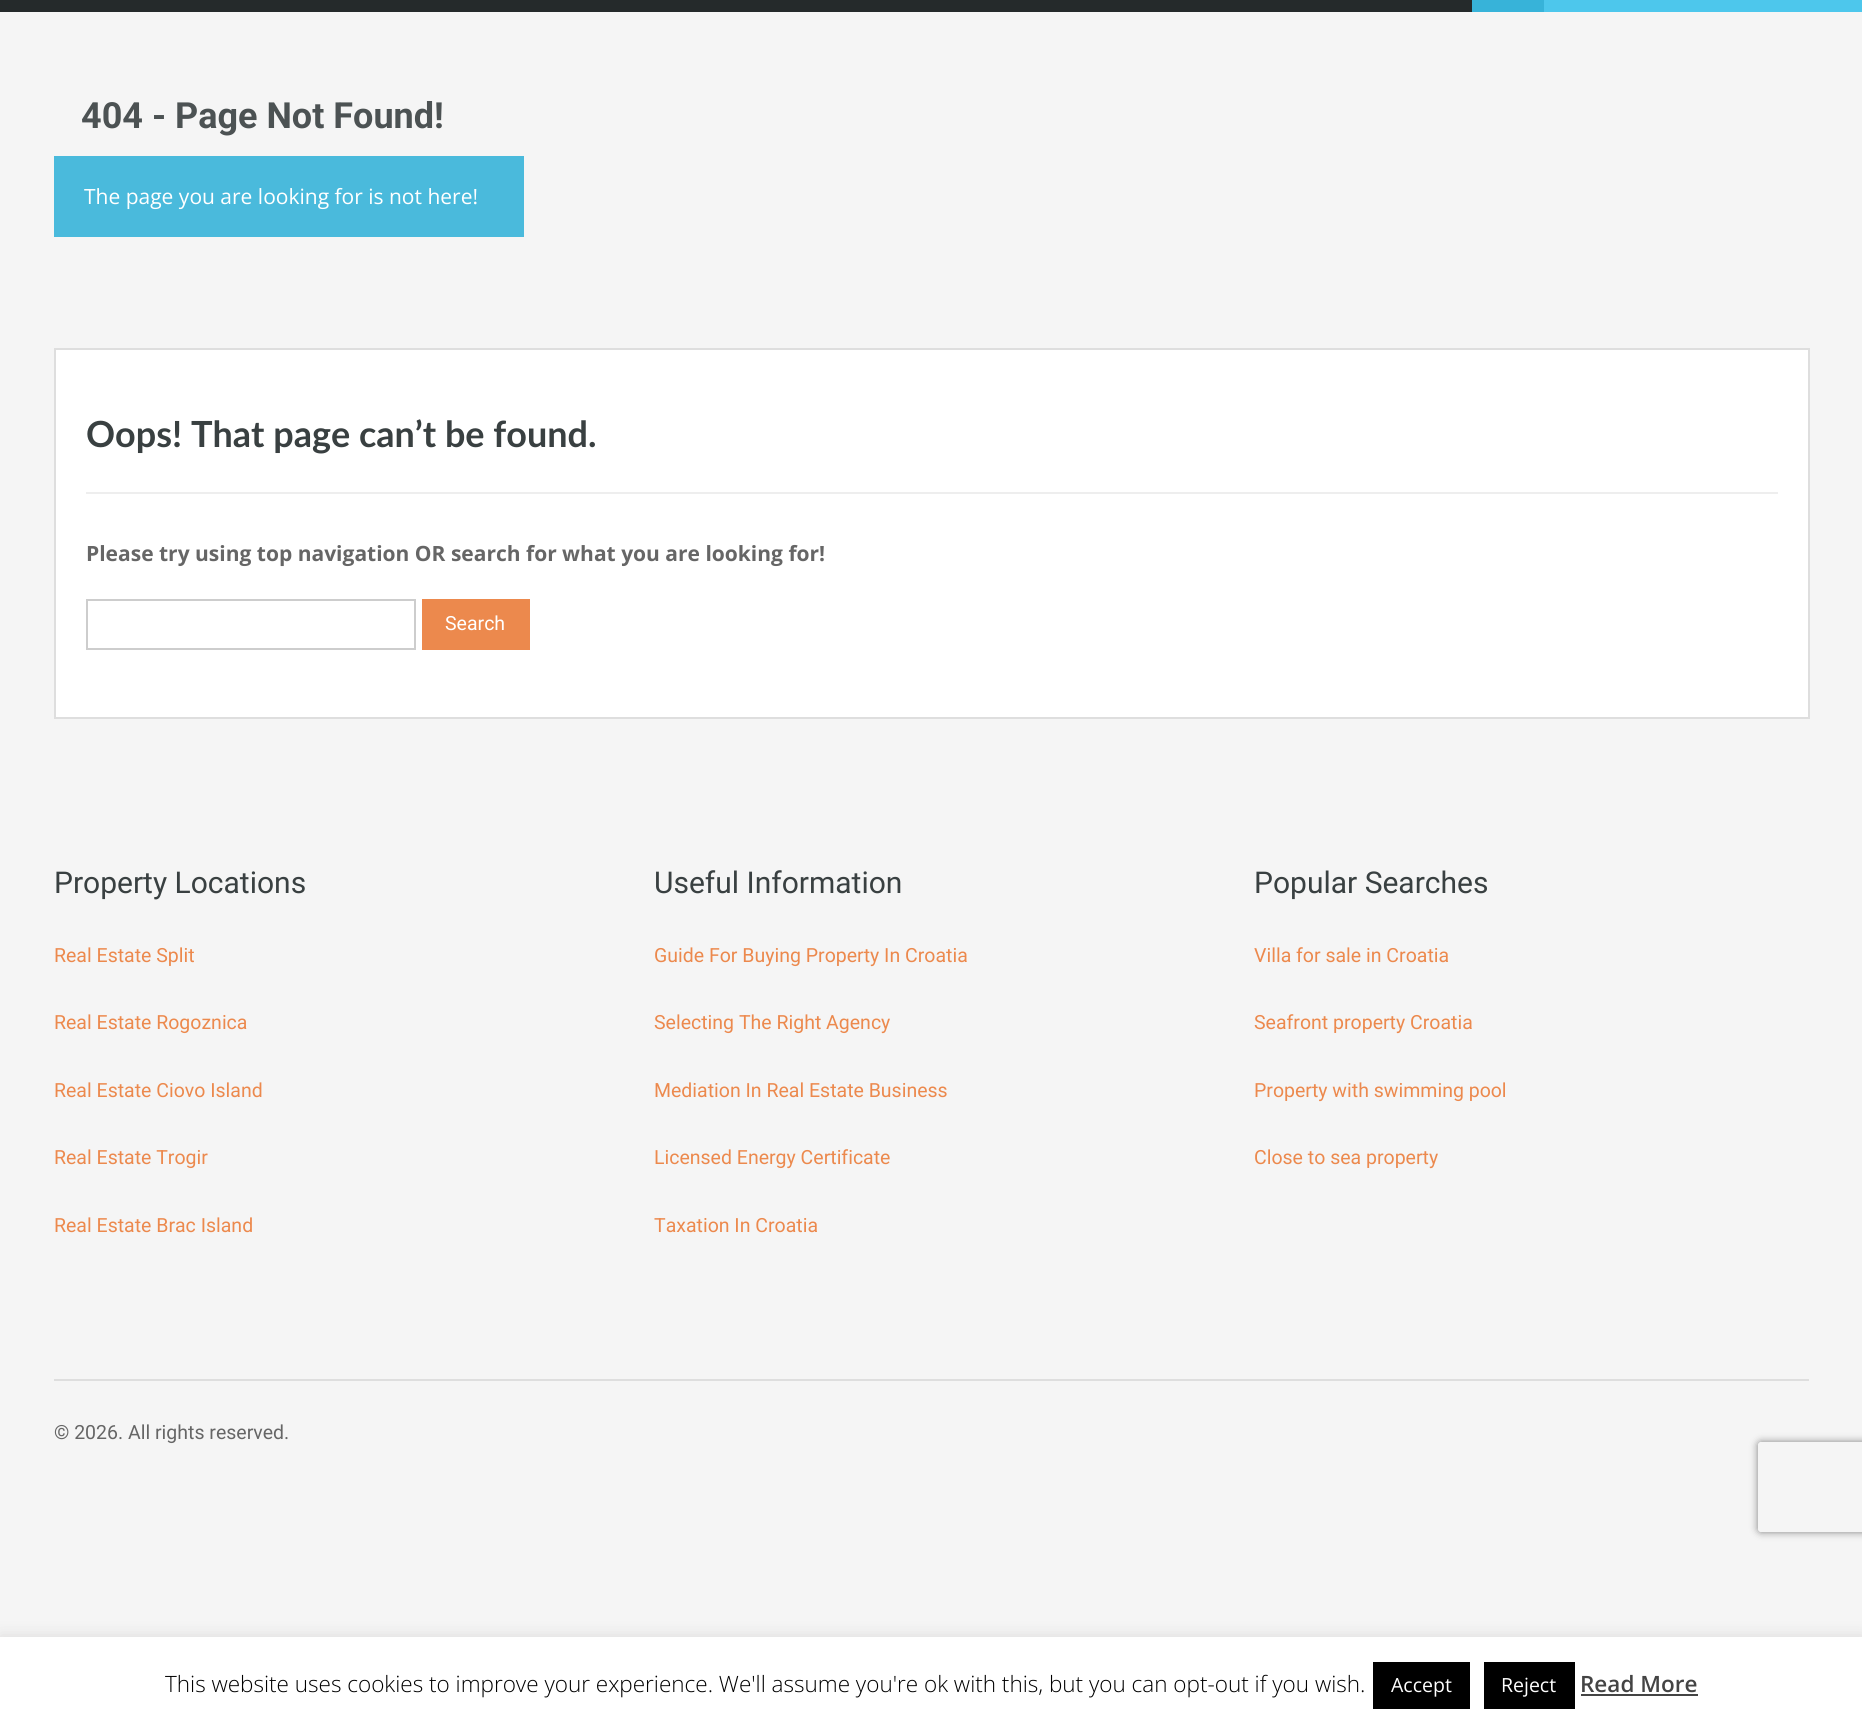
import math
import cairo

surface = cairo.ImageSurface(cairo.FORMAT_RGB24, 1862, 1726)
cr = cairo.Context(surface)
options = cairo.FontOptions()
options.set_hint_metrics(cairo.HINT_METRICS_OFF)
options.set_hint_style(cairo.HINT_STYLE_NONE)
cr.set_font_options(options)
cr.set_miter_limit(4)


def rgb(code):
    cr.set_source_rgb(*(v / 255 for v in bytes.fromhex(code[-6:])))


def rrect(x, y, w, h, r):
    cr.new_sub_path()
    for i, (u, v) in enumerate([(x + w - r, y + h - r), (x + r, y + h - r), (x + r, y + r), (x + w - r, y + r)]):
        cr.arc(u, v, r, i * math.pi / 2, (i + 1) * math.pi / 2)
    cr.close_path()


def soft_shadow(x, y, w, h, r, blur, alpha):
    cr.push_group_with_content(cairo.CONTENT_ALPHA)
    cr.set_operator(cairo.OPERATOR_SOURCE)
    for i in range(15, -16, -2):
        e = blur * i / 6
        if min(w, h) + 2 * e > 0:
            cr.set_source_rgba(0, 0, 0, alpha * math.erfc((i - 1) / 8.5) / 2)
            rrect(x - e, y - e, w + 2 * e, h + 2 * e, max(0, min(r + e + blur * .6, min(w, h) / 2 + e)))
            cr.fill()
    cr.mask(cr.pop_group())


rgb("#f5f5f5")
cr.paint()
for x, y, w, h, color in [
    (0, 0, 1472, 12, "#252a2b"),
    (1544, 0, 318, 12, "#4dc7ec"),
    (1472, 0, 72, 12, "#37b3d9"),
    (54, 156, 470, 81, "#4abadc"),
    (1808, 348, 2, 371, "#dedede"),
    (54, 348, 2, 371, "#dedede"),
    (56, 350, 1752, 367, "#ffffff"),
    (56, 348, 1752, 2, "#dedede"),
    (56, 717, 1752, 2, "#dedede"),
    (86, 492, 1692, 2, "#eeeeee"),
]:
    rgb(color)
    cr.rectangle(x, y, w, h)
    cr.fill()
cr.rectangle(87, 600, 328, 49)
rgb("#cdcdcd")
cr.stroke()
rgb("#ec894d")
cr.rectangle(422, 599, 108, 51)
cr.fill()
rgb("#dedede")
cr.rectangle(54, 1379, 1755, 2)
cr.fill()
cr.save()
cr.set_fill_rule(cairo.FILL_RULE_EVEN_ODD)
cr.new_path()
cr.move_to(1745, 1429)
cr.line_to(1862, 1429)
cr.line_to(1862, 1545)
cr.line_to(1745, 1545)
cr.close_path()
cr.move_to(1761, 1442)
cr.line_to(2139, 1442)
cr.curve_to(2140.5, 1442, 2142, 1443.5, 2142, 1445)
cr.line_to(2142, 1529)
cr.curve_to(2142, 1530.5, 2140.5, 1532, 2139, 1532)
cr.line_to(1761, 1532)
cr.curve_to(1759.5, 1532, 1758, 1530.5, 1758, 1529)
cr.line_to(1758, 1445)
cr.curve_to(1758, 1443.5, 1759.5, 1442, 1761, 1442)
cr.close_path()
cr.clip()
rgb("#808080")
soft_shadow(1758, 1442, 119, 90, 3, 4, 1)
cr.restore()
rgb("#acabab")
soft_shadow(0, 1635, 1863, 90, 0, 7.5, 0.3)
for x, y, w, h, color in [
    (0, 1637, 1862, 89, "#ffffff"),
    (1373, 1662, 97, 47, "#000000"),
    (1484, 1662, 91, 47, "#000000"),
    (1581, 1694, 117, 2, "#444444"),
]:
    rgb(color)
    cr.rectangle(x, y, w, h)
    cr.fill()
cr.select_font_face("Roboto", cairo.FONT_SLANT_NORMAL, cairo.FONT_WEIGHT_BOLD)
cr.set_font_size(36)
rgb("#4c5253")
cr.move_to(81, 128)
cr.show_text("404 - Page Not Found!")
cr.select_font_face("Open Sans")
cr.set_font_size(21)
rgb("#ffffff")
cr.move_to(84, 204)
cr.show_text("The page you are looking for is not here!")
cr.select_font_face("Lato", cairo.FONT_SLANT_NORMAL, cairo.FONT_WEIGHT_BOLD)
cr.set_font_size(36)
rgb("#394041")
cr.move_to(86, 447)
cr.show_text("Oops! That page can’t be found.")
cr.select_font_face("Open Sans", cairo.FONT_SLANT_NORMAL, cairo.FONT_WEIGHT_BOLD)
cr.set_font_size(21)
rgb("#666666")
cr.move_to(86, 561)
cr.show_text("Please try using top navigation OR search for what you are looking for!")
cr.select_font_face("Roboto")
cr.set_font_size(19.5)
rgb("#ffffff")
cr.move_to(445, 630)
cr.show_text("Search")
cr.set_font_size(30)
rgb("#394041")
cr.move_to(54, 893)
cr.show_text("Property Locations")
cr.set_font_size(19.5)
rgb("#ec894d")
for x, y, s in [
    (54, 962, "Real Estate Split"),
    (54, 1029, "Real Estate Rogoznica"),
    (54, 1097, "Real Estate Ciovo Island"),
    (54, 1164, "Real Estate Trogir"),
    (54, 1232, "Real Estate Brac Island"),
]:
    cr.move_to(x, y)
    cr.show_text(s)
cr.set_font_size(30)
rgb("#394041")
cr.move_to(654, 893)
cr.show_text("Useful Information")
cr.set_font_size(19.5)
rgb("#ec894d")
for x, y, s in [
    (654, 962, "Guide For Buying Property In Croatia"),
    (654, 1029, "Selecting The Right Agency"),
    (654, 1097, "Mediation In Real Estate Business"),
    (654, 1164, "Licensed Energy Certificate"),
    (654, 1232, "Taxation In Croatia"),
]:
    cr.move_to(x, y)
    cr.show_text(s)
cr.set_font_size(30)
rgb("#394041")
cr.move_to(1254, 893)
cr.show_text("Popular Searches")
cr.set_font_size(19.5)
rgb("#ec894d")
for x, y, s in [
    (1254, 962, "Villa for sale in Croatia"),
    (1254, 1029, "Seafront property Croatia"),
    (1254, 1097, "Property with swimming pool"),
    (1254, 1164, "Close to sea property"),
]:
    cr.move_to(x, y)
    cr.show_text(s)
rgb("#666666")
cr.move_to(54, 1439)
cr.show_text("© 2026. All rights reserved.")
cr.select_font_face("Open Sans Light")
cr.set_font_size(22.5)
rgb("#000000")
cr.move_to(165, 1692)
cr.show_text("This website uses cookies to improve your experience. We'll assume you're ok with this, but you can opt-out if you wish.")
cr.select_font_face("Open Sans")
cr.set_font_size(19.5)
rgb("#ffffff")
cr.move_to(1391, 1692)
cr.show_text("Accept")
cr.move_to(1501, 1692)
cr.show_text("Reject")
cr.select_font_face("Open Sans SemiBold")
cr.set_font_size(22.5)
rgb("#444444")
cr.move_to(1580, 1692)
cr.show_text("Read More")
surface.write_to_png("page.png")
